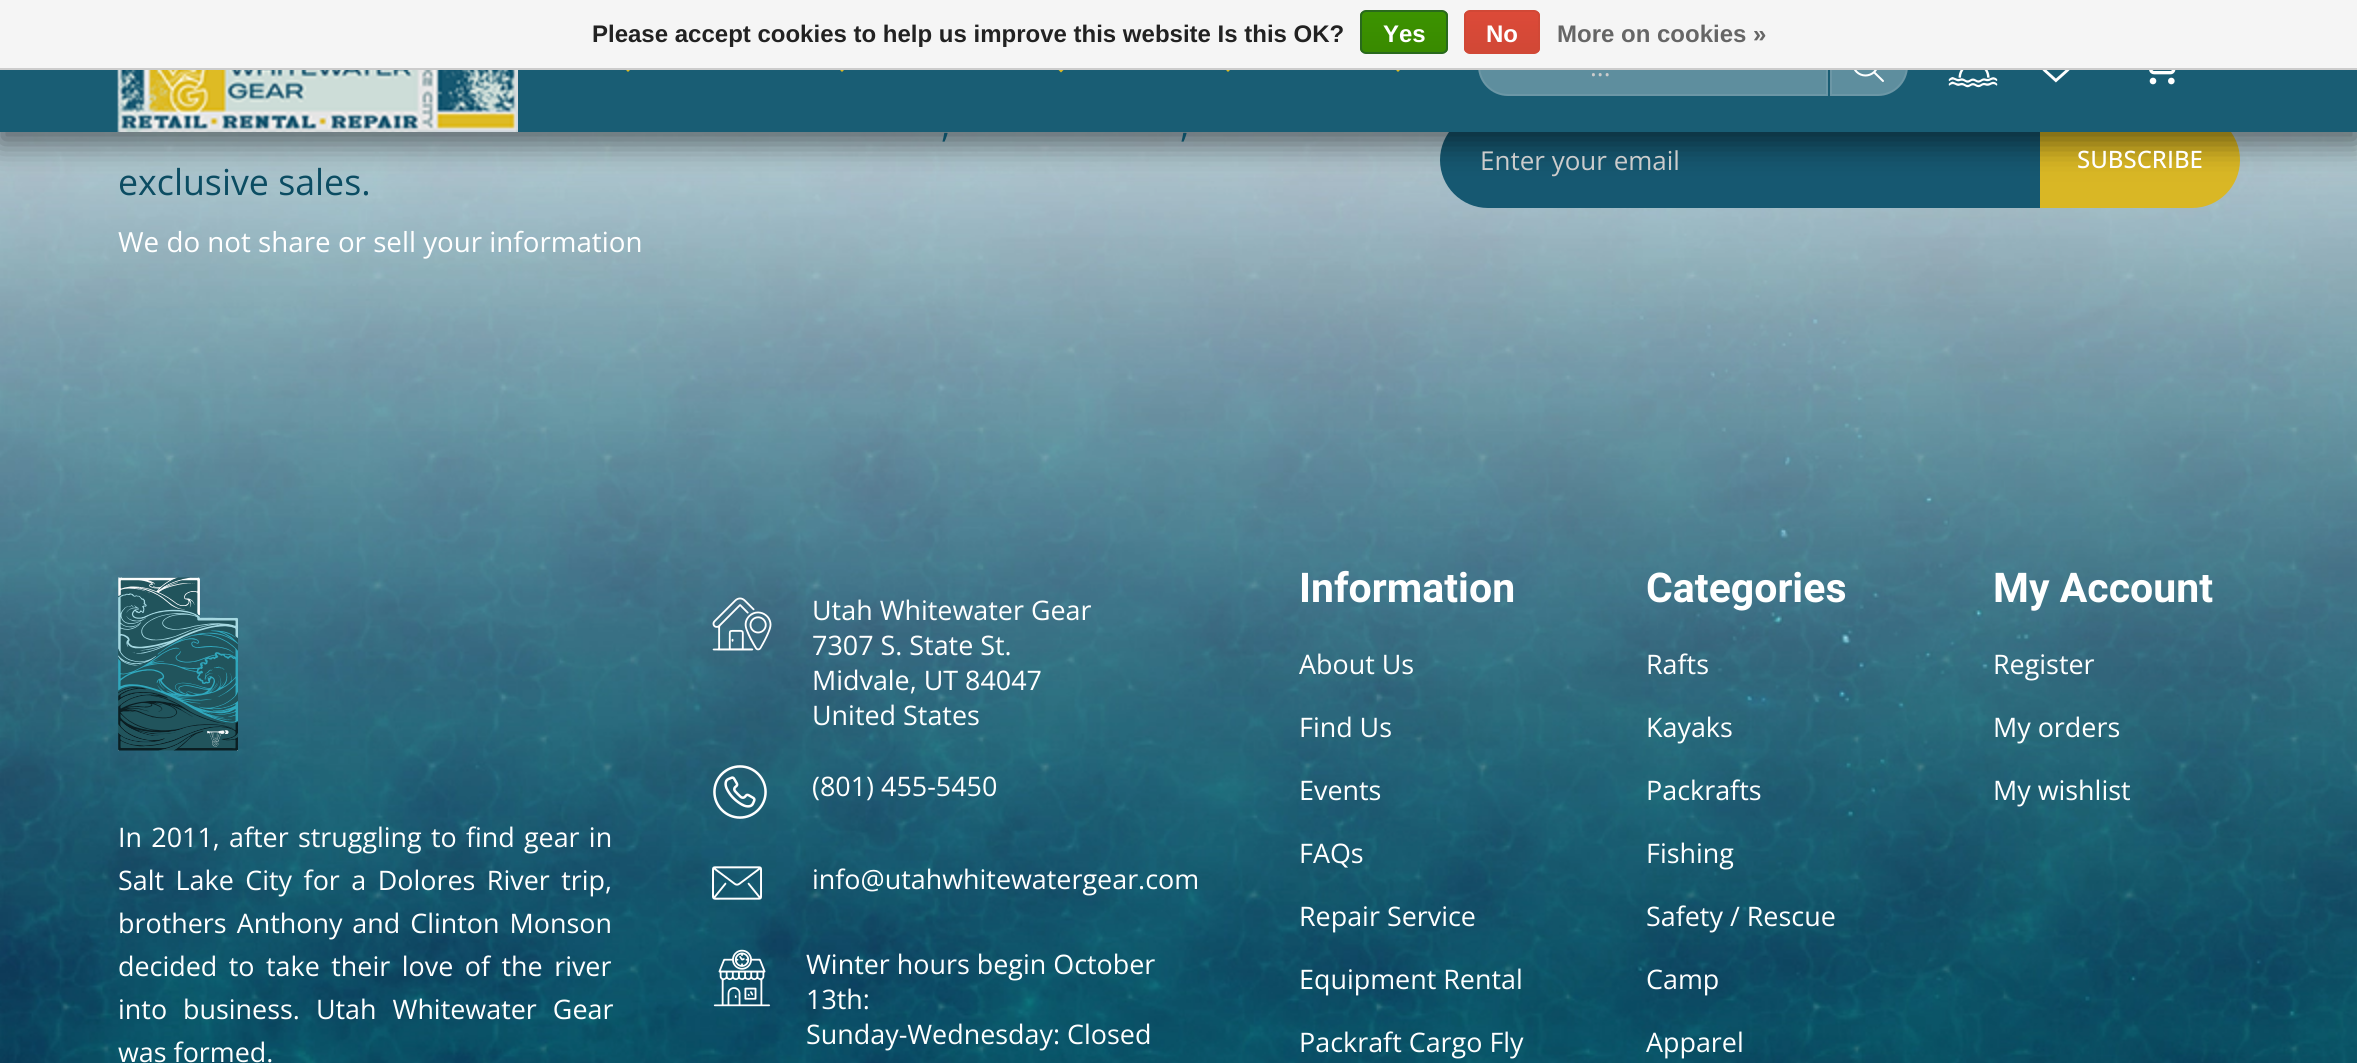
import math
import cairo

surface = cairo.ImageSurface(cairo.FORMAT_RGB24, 2357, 1063)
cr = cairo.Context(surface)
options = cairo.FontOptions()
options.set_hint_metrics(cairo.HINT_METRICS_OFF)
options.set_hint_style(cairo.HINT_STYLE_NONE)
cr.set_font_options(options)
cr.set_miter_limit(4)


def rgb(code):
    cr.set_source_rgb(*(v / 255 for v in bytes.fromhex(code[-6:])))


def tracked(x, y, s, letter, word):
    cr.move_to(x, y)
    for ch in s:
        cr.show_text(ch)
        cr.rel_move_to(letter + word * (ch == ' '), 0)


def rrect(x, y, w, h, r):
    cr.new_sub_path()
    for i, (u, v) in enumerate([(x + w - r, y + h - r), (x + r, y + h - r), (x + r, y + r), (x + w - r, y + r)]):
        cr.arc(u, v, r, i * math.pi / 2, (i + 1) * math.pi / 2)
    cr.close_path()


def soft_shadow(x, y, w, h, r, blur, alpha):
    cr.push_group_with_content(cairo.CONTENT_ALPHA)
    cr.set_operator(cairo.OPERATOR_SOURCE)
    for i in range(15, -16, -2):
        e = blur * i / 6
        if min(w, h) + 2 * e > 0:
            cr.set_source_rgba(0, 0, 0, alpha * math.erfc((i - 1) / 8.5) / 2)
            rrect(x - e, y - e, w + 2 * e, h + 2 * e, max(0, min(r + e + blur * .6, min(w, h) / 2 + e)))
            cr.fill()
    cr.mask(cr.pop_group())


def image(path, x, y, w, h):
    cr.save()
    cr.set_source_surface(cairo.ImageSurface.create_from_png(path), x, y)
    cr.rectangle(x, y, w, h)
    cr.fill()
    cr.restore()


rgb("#ffffff")
cr.paint()
image("img/6.png", 0, 132, 2357, 931)
rgb("#165871")
cr.new_path()
cr.move_to(1488, 112)
cr.line_to(2040, 112)
cr.line_to(2040, 208)
cr.line_to(1488, 208)
cr.curve_to(1461.5, 208, 1440, 186.5, 1440, 160)
cr.curve_to(1440, 133.5, 1461.5, 112, 1488, 112)
cr.close_path()
cr.fill()
rgb("#d9b725")
cr.new_path()
cr.move_to(2040, 112)
cr.line_to(2192, 112)
cr.curve_to(2218.5, 112, 2240, 133.5, 2240, 160)
cr.curve_to(2240, 186.5, 2218.5, 208, 2192, 208)
cr.line_to(2040, 208)
cr.close_path()
cr.fill()
rgb("#000000")
soft_shadow(-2, 8, 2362, 136, 0, 15, 0.5)
rgb("#195d74")
cr.rectangle(0, 70, 2357, 62)
cr.fill()
rgb("#debb24")
cr.new_path()
cr.move_to(621, 61)
cr.line_to(628, 68)
cr.line_to(635, 61)
cr.line_to(637, 63)
cr.line_to(628, 72)
cr.line_to(619, 63)
cr.close_path()
cr.fill()
cr.new_path()
cr.move_to(835, 61)
cr.line_to(842, 68)
cr.line_to(849, 61)
cr.line_to(851, 63)
cr.line_to(842, 72)
cr.line_to(833, 63)
cr.close_path()
cr.fill()
cr.new_path()
cr.move_to(1054.5, 62)
cr.line_to(1061, 68.5)
cr.line_to(1067.5, 62)
cr.line_to(1069.5, 64)
cr.line_to(1061, 72.5)
cr.line_to(1052.5, 64)
cr.close_path()
cr.fill()
cr.new_path()
cr.move_to(1221, 61)
cr.line_to(1228, 68)
cr.line_to(1235, 61)
cr.line_to(1237, 63)
cr.line_to(1228, 72)
cr.line_to(1219, 63)
cr.close_path()
cr.fill()
cr.new_path()
cr.move_to(1391, 61)
cr.line_to(1398, 68)
cr.line_to(1405, 61)
cr.line_to(1407, 63)
cr.line_to(1398, 72)
cr.line_to(1389, 63)
cr.close_path()
cr.fill()
rgb("#5e8e9e")
cr.new_path()
cr.move_to(1508, 36)
cr.line_to(1828, 36)
cr.line_to(1828, 96)
cr.line_to(1508, 96)
cr.curve_to(1491.5, 96, 1478, 82.5, 1478, 66)
cr.curve_to(1478, 49.5, 1491.5, 36, 1508, 36)
cr.close_path()
cr.fill()
cr.new_path()
cr.move_to(1508, 37)
cr.line_to(1827, 37)
cr.line_to(1827, 95)
cr.line_to(1508, 95)
cr.curve_to(1492, 95, 1479, 82, 1479, 66)
cr.curve_to(1479, 50, 1492, 37, 1508, 37)
cr.close_path()
cr.set_source_rgba(0.933, 0.933, 0.933, 0.1)
cr.stroke()
rgb("#5e8e9e")
cr.new_path()
cr.move_to(1830, 36)
cr.line_to(1878, 36)
cr.curve_to(1894.5, 36, 1908, 49.5, 1908, 66)
cr.curve_to(1908, 82.5, 1894.5, 96, 1878, 96)
cr.line_to(1830, 96)
cr.close_path()
cr.fill()
cr.new_path()
cr.move_to(1831, 37)
cr.line_to(1878, 37)
cr.curve_to(1894, 37, 1907, 50, 1907, 66)
cr.curve_to(1907, 82, 1894, 95, 1878, 95)
cr.line_to(1831, 95)
cr.close_path()
cr.set_source_rgba(0.933, 0.933, 0.933, 0.1)
cr.stroke()
rgb("#f5f5f5")
cr.rectangle(0, 0, 2357, 68)
cr.fill()
rgb("#cccccc")
cr.rectangle(0, 68, 2357, 2)
cr.fill()
cr.save()
rrect(1360, 10, 88, 44, 6)
cr.clip()
gradient = cairo.LinearGradient(1404, 12, 1404, 52)
gradient.add_color_stop_rgba(0, 0.235, 0.576, 0, 1)
gradient.add_color_stop_rgba(1, 0.224, 0.541, 0, 1)
cr.set_source(gradient)
cr.rectangle(1360, 12, 88, 40)
cr.fill()
cr.restore()
rrect(1361, 11, 86, 42, 5)
rgb("#29691d")
cr.stroke()
cr.save()
rrect(1464, 10, 76, 44, 6)
cr.clip()
gradient = cairo.LinearGradient(1502, 12, 1502, 52)
gradient.add_color_stop_rgba(0, 0.863, 0.29, 0.22, 1)
gradient.add_color_stop_rgba(1, 0.82, 0.282, 0.212, 1)
cr.set_source(gradient)
cr.rectangle(1464, 12, 76, 40)
cr.fill()
cr.restore()
rrect(1465, 11, 74, 42, 5)
rgb("#d14836")
cr.stroke()
image("img/1.png", 117, 70, 401, 62)
image("img/2.png", 1854, 70, 30, 12)
image("img/3.png", 1948, 70, 50, 18)
image("img/4.png", 2042, 70, 28, 13)
image("img/5.png", 2149, 70, 27, 15)
image("img/7.png", 118, 577, 120, 174)
image("img/8.png", 712, 597, 60, 54)
image("img/9.png", 713, 765, 54, 54)
image("img/10.png", 712, 866, 50, 34)
image("img/11.png", 713, 949, 58, 58)
cr.select_font_face("Liberation Sans", cairo.FONT_SLANT_NORMAL, cairo.FONT_WEIGHT_BOLD)
cr.set_font_size(24)
rgb("#222222")
cr.move_to(592, 42)
cr.show_text("Please accept cookies to help us improve this website Is this OK?")
rgb("#ffffff")
cr.move_to(1383, 42)
cr.show_text("Yes")
cr.move_to(1486, 42)
cr.show_text("No")
rgb("#666666")
cr.move_to(1557, 42)
cr.show_text("More on cookies »")
cr.select_font_face("Open Sans")
cr.set_font_size(26)
rgb("#cccccc")
cr.move_to(1590, 76)
cr.show_text("...")
cr.set_font_size(35.75)
rgb("#0b4c62")
for x, y, s in [
    (941, 137, ","),
    (1180, 137, ","),
    (118, 195, "exclusive sales."),
]:
    cr.move_to(x, y)
    cr.show_text(s)
cr.set_font_size(27.75)
rgb("#ffffff")
cr.move_to(118, 252)
cr.show_text("We do not share or sell your information")
cr.set_font_size(26)
rgb("#cccccc")
cr.move_to(1480, 170)
cr.show_text("Enter your email")
cr.select_font_face("Open Sans Medium")
cr.set_font_size(24)
rgb("#ffffff")
cr.move_to(2077, 168)
cr.show_text("SUBSCRIBE")
cr.select_font_face("Open Sans")
cr.set_font_size(26.9)
tracked(118, 847, "In 2011, after struggling to find gear in", 0, 2.25)
tracked(118, 890, "Salt Lake City for a Dolores River trip,", 0, 4.5)
tracked(118, 933, "brothers Anthony and Clinton Monson", 0, 3)
tracked(118, 976, "decided to take their love of the river", 0, 4.5)
tracked(118, 1019, "into business. Utah Whitewater Gear", 0, 9)
for x, y, s in [
    (118, 1062, "was formed."),
    (812, 620, "Utah Whitewater Gear"),
    (812, 655, "7307 S. State St."),
    (812, 690, "Midvale, UT 84047"),
    (812, 725, "United States"),
    (812, 796, "(801) 455-5450"),
    (812, 889, "info@utahwhitewatergear.com"),
    (806, 974, "Winter hours begin October"),
    (806, 1009, "13th:"),
    (806, 1044, "Sunday-Wednesday: Closed"),
]:
    cr.move_to(x, y)
    cr.show_text(s)
cr.select_font_face("Roboto", cairo.FONT_SLANT_NORMAL, cairo.FONT_WEIGHT_BOLD)
cr.set_font_size(41)
cr.move_to(1299, 602)
cr.show_text("Information")
cr.select_font_face("Open Sans")
cr.set_font_size(26.9)
for x, y, s in [
    (1299, 674, "About Us"),
    (1299, 737, "Find Us"),
    (1299, 800, "Events"),
    (1299, 863, "FAQs"),
    (1299, 926, "Repair Service"),
    (1299, 989, "Equipment Rental"),
    (1299, 1052, "Packraft Cargo Fly"),
]:
    cr.move_to(x, y)
    cr.show_text(s)
cr.select_font_face("Roboto", cairo.FONT_SLANT_NORMAL, cairo.FONT_WEIGHT_BOLD)
cr.set_font_size(41)
cr.move_to(1646, 602)
cr.show_text("Categories")
cr.select_font_face("Open Sans")
cr.set_font_size(26.9)
for x, y, s in [
    (1646, 674, "Rafts"),
    (1646, 737, "Kayaks"),
    (1646, 800, "Packrafts"),
    (1646, 863, "Fishing"),
    (1646, 926, "Safety / Rescue"),
    (1646, 989, "Camp"),
    (1646, 1052, "Apparel"),
]:
    cr.move_to(x, y)
    cr.show_text(s)
cr.select_font_face("Roboto", cairo.FONT_SLANT_NORMAL, cairo.FONT_WEIGHT_BOLD)
cr.set_font_size(41)
cr.move_to(1993, 602)
cr.show_text("My Account")
cr.select_font_face("Open Sans")
cr.set_font_size(26.9)
for x, y, s in [
    (1993, 674, "Register"),
    (1993, 737, "My orders"),
    (1993, 800, "My wishlist"),
]:
    cr.move_to(x, y)
    cr.show_text(s)
surface.write_to_png("page.png")
